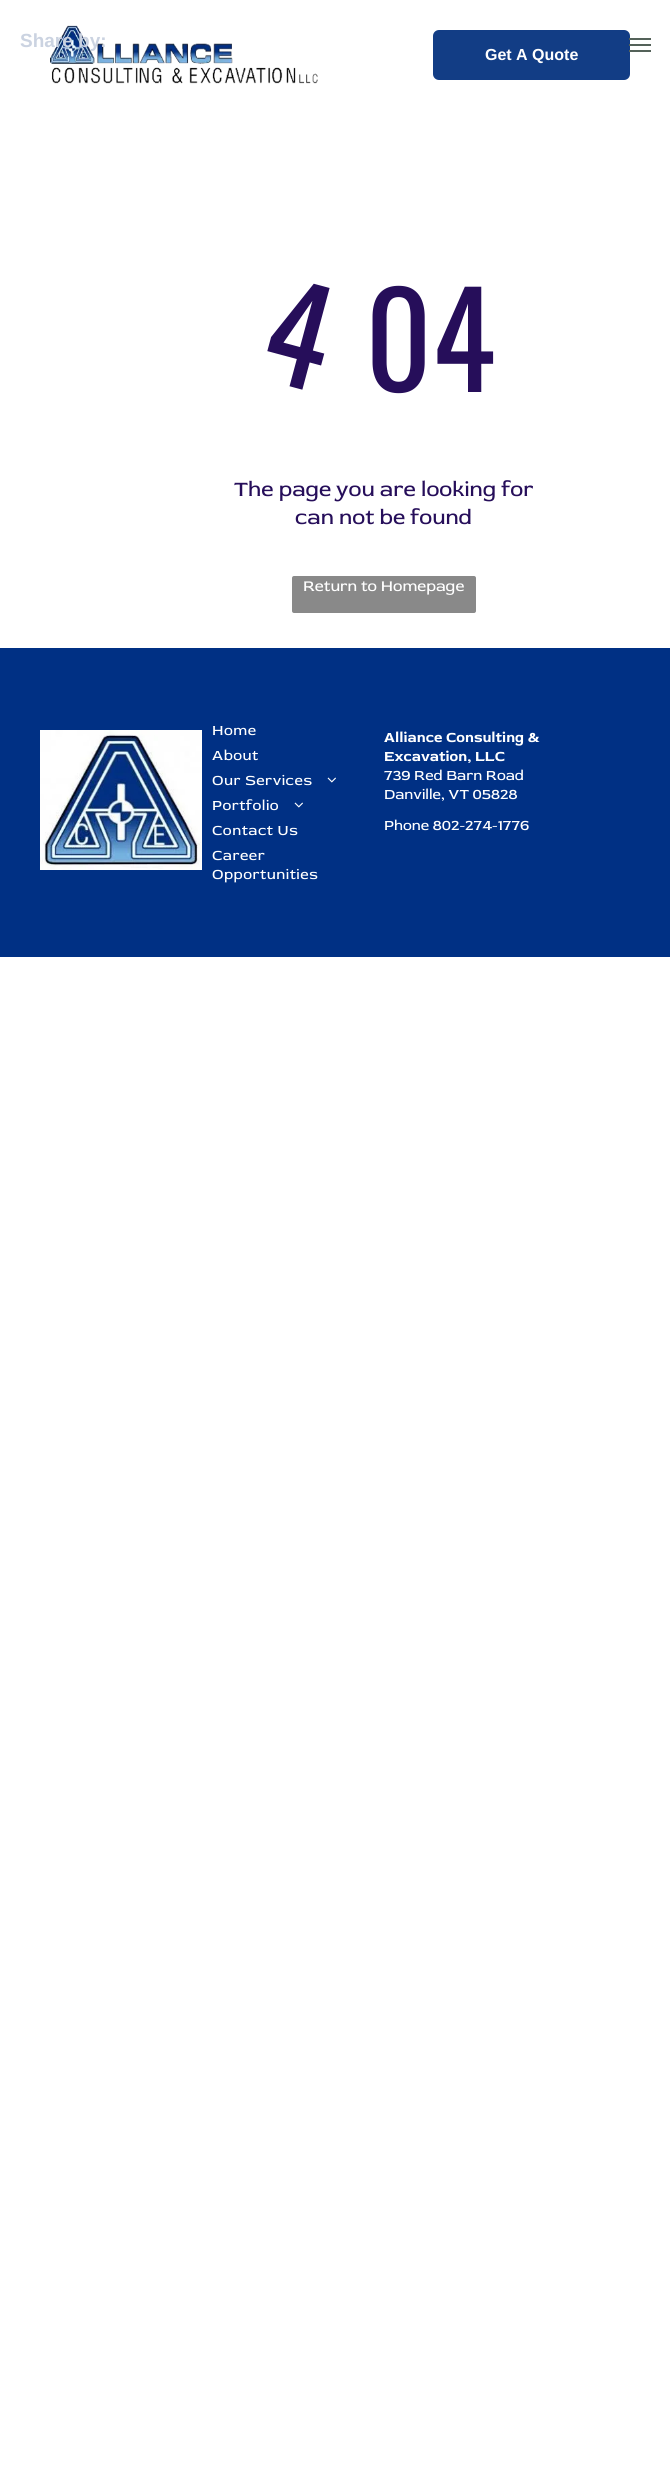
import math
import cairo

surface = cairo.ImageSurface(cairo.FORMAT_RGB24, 670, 2492)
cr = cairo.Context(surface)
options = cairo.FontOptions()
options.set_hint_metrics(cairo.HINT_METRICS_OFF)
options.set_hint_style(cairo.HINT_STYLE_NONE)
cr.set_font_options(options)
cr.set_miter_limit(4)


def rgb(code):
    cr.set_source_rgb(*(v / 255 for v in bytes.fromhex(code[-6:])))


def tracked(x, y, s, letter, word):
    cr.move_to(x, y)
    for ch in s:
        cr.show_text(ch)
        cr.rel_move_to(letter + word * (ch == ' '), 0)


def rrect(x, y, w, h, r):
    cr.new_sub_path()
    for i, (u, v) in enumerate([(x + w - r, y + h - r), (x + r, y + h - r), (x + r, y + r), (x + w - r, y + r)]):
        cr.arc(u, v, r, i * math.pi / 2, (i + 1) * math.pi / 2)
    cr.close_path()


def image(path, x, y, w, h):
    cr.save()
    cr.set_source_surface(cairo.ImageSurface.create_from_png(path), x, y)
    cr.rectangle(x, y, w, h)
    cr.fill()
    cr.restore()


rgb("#ffffff")
cr.paint()
rgb("#123d85")
rrect(433, 30, 197, 50, 6)
cr.fill()
for x, y, w, h, color in [
    (629, 38, 22, 2, "#546259"),
    (629, 44, 22, 2, "#546259"),
    (629, 50, 22, 2, "#546259"),
]:
    rgb(color)
    cr.rectangle(x, y, w, h)
    cr.fill()
image("img/1.png", 50, 25, 268, 59)
rgb("#898989")
rrect(292, 576, 184, 37, 2)
cr.fill()
rgb("#003084")
cr.rectangle(0, 648, 670, 309)
cr.fill()
image("img/2.png", 40, 730, 162, 140)
image("img/3.png", 327, 777, 9, 6)
image("img/3.png", 294, 802, 9, 6)
cr.select_font_face("Liberation Sans", cairo.FONT_SLANT_NORMAL, cairo.FONT_WEIGHT_BOLD)
cr.set_font_size(19)
rgb("#cbd3e1")
cr.move_to(20, 47)
cr.show_text("Share by:")
cr.set_font_size(16)
rgb("#ffffff")
cr.move_to(485, 60)
cr.show_text("Get A Quote")
cr.select_font_face("Oswald")
cr.set_font_size(130)
rgb("#260e5a")
cr.save()
cr.translate(255, 377)
cr.rotate(15 * math.pi / 180)
cr.move_to(0, 0)
cr.show_text("4")
cr.restore()
cr.move_to(365, 392)
cr.show_text("04")
cr.select_font_face("Red Rose")
cr.set_font_size(22)
cr.move_to(234, 496)
cr.show_text("The page you are looking for")
cr.move_to(295, 524)
cr.show_text("can not be found")
cr.set_font_size(16)
rgb("#ffffff")
cr.move_to(303, 591)
cr.show_text("Return to Homepage")
cr.set_font_size(15)
for x, y, s in [
    (212, 735, "Home"),
    (212, 760, "About"),
    (212, 785, "Our Services"),
    (212, 810, "Portfolio"),
    (212, 835, "Contact Us"),
    (212, 860, "Career"),
    (212, 879, "Opportunities"),
]:
    tracked(x, y, s, 0.5, 0)
cr.select_font_face("Red Rose", cairo.FONT_SLANT_NORMAL, cairo.FONT_WEIGHT_BOLD)
cr.move_to(384, 742)
cr.show_text("Alliance Consulting &")
cr.move_to(384, 761)
cr.show_text("Excavation, LLC")
cr.select_font_face("Red Rose")
for x, y, s in [
    (384, 780, "739 Red Barn Road"),
    (384, 799, "Danville, VT 05828"),
    (384, 830, "Phone 802-274-1776"),
]:
    cr.move_to(x, y)
    cr.show_text(s)
surface.write_to_png("page.png")
